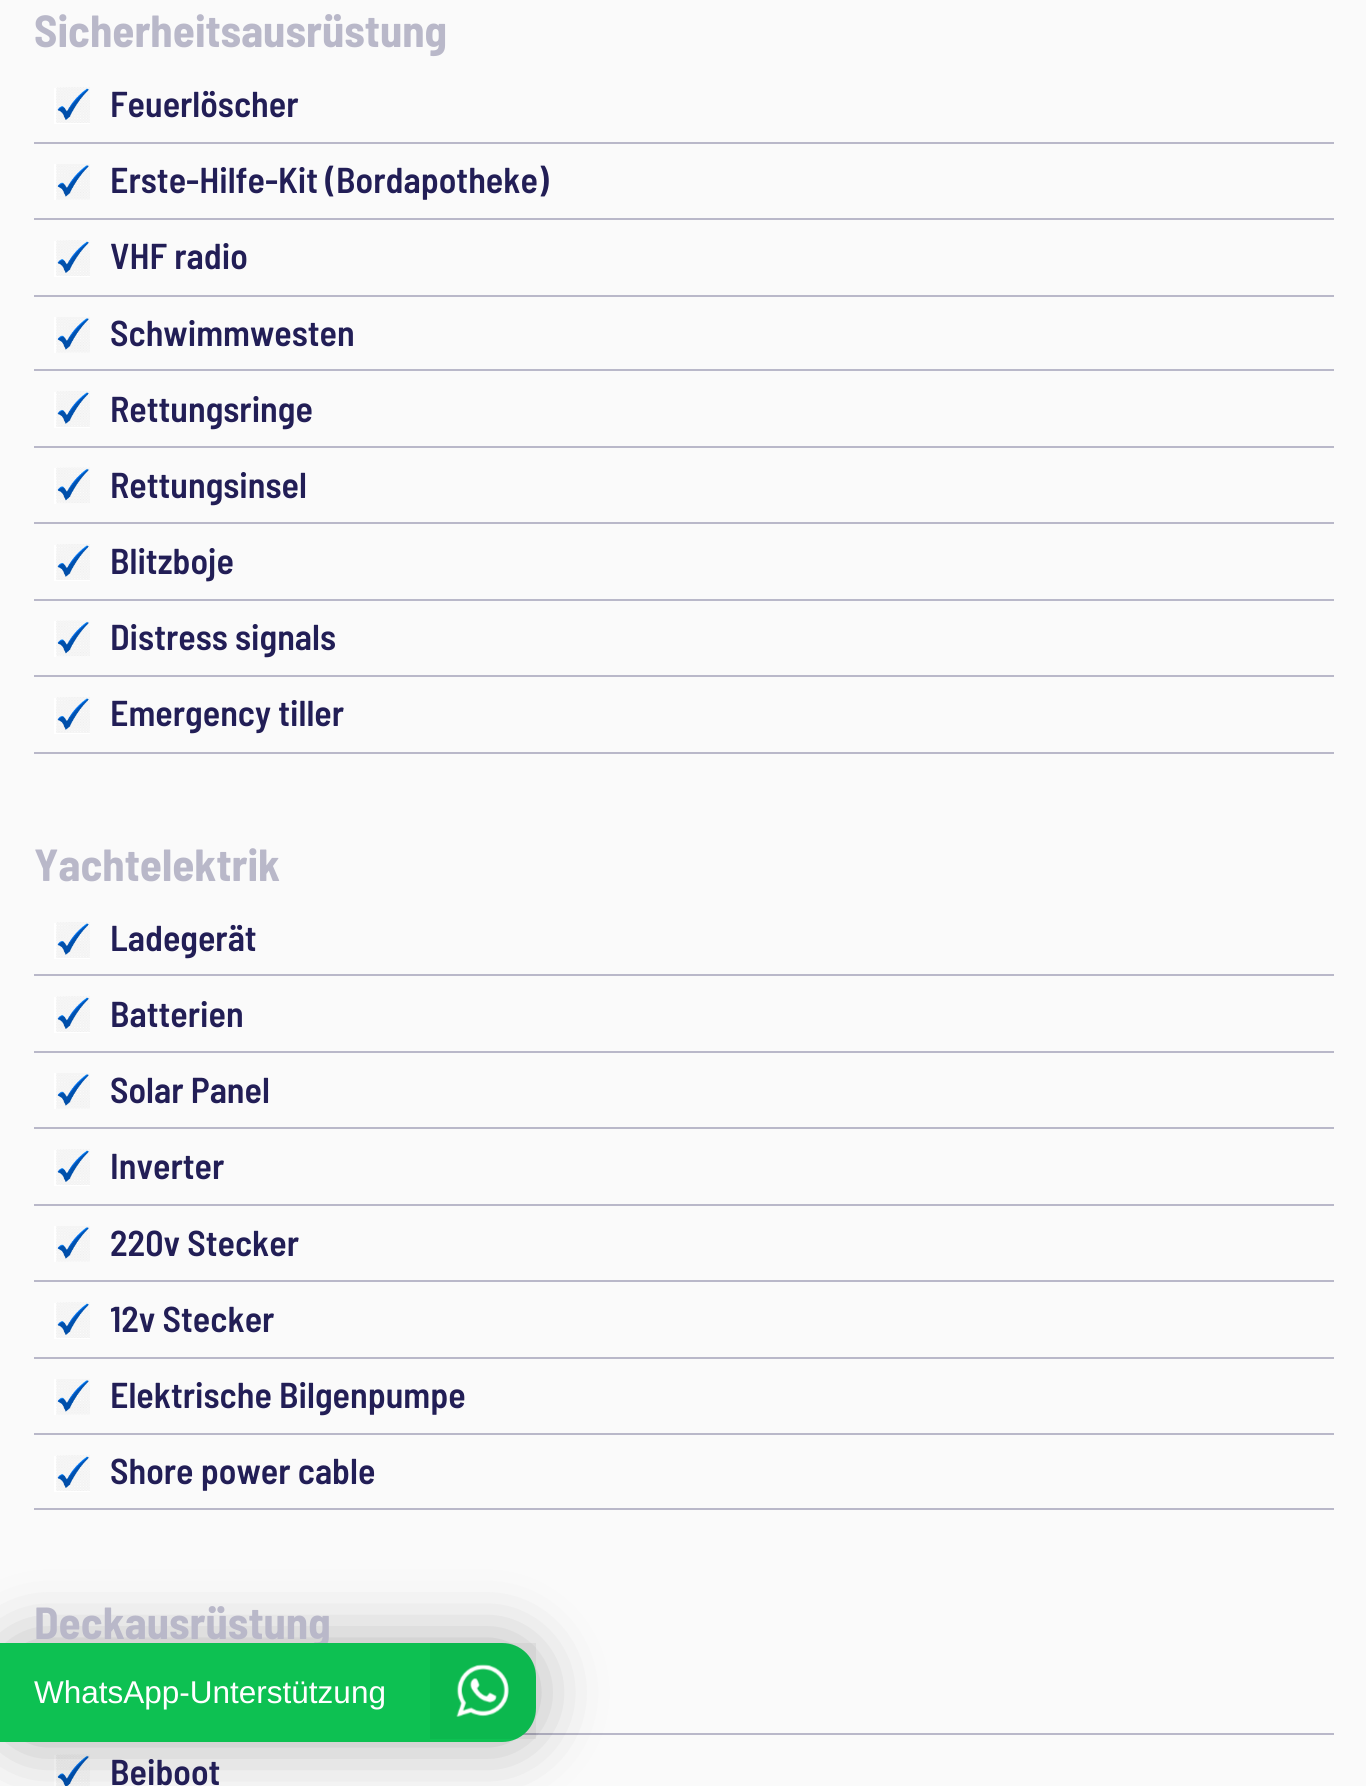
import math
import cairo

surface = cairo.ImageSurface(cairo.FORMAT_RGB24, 1366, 1786)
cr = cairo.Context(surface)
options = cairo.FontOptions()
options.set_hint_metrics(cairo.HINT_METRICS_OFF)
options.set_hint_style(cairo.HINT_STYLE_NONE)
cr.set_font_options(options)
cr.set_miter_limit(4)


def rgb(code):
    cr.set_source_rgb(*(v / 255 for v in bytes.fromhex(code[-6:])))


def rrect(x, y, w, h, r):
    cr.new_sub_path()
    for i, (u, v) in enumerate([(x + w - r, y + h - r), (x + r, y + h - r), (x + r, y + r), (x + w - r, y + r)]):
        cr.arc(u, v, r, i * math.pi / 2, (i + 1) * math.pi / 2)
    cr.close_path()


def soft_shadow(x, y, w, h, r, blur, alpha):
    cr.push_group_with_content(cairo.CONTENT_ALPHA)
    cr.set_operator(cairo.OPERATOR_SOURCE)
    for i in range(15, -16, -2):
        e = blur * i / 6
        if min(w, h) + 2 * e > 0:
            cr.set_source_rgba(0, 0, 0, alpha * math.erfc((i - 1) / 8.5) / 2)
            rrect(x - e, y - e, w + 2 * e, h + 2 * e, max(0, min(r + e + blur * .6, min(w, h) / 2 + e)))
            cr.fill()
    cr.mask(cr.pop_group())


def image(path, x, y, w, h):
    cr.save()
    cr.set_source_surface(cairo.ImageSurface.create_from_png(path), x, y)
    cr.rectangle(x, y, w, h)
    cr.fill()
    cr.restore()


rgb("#fafafa")
cr.paint()
rgb("#b9b8c9")
cr.rectangle(34, 142, 1300, 2)
cr.fill()
rgb("#ffffff")
cr.rectangle(54, 88, 36, 36)
cr.fill()
image("img/1.png", 56, 87, 34, 36)
rgb("#b9b8c9")
cr.rectangle(34, 218, 1300, 2)
cr.fill()
rgb("#ffffff")
cr.rectangle(54, 164, 36, 36)
cr.fill()
image("img/2.png", 56, 164, 34, 36)
rgb("#b9b8c9")
cr.rectangle(34, 295, 1300, 2)
cr.fill()
rgb("#ffffff")
cr.rectangle(54, 241, 36, 36)
cr.fill()
image("img/1.png", 56, 240, 34, 36)
rgb("#b9b8c9")
cr.rectangle(34, 369, 1300, 2)
cr.fill()
rgb("#ffffff")
cr.rectangle(54, 317, 36, 36)
cr.fill()
image("img/2.png", 56, 317, 34, 36)
rgb("#b9b8c9")
cr.rectangle(34, 446, 1300, 2)
cr.fill()
rgb("#ffffff")
cr.rectangle(54, 392, 36, 36)
cr.fill()
image("img/3.png", 56, 391, 34, 36)
rgb("#b9b8c9")
cr.rectangle(34, 522, 1300, 2)
cr.fill()
rgb("#ffffff")
cr.rectangle(54, 468, 36, 36)
cr.fill()
image("img/4.png", 56, 467, 34, 37)
rgb("#b9b8c9")
cr.rectangle(34, 599, 1300, 2)
cr.fill()
rgb("#ffffff")
cr.rectangle(54, 545, 36, 36)
cr.fill()
image("img/3.png", 56, 544, 34, 36)
rgb("#b9b8c9")
cr.rectangle(34, 675, 1300, 2)
cr.fill()
rgb("#ffffff")
cr.rectangle(54, 621, 36, 36)
cr.fill()
image("img/4.png", 56, 620, 34, 37)
rgb("#b9b8c9")
cr.rectangle(34, 752, 1300, 2)
cr.fill()
rgb("#ffffff")
cr.rectangle(54, 698, 36, 36)
cr.fill()
image("img/3.png", 56, 697, 34, 36)
rgb("#b9b8c9")
cr.rectangle(34, 974, 1300, 2)
cr.fill()
rgb("#ffffff")
cr.rectangle(54, 923, 36, 36)
cr.fill()
image("img/3.png", 56, 922, 34, 36)
rgb("#b9b8c9")
cr.rectangle(34, 1051, 1300, 2)
cr.fill()
rgb("#ffffff")
cr.rectangle(54, 997, 36, 36)
cr.fill()
image("img/1.png", 56, 996, 34, 36)
rgb("#b9b8c9")
cr.rectangle(34, 1127, 1300, 2)
cr.fill()
rgb("#ffffff")
cr.rectangle(54, 1073, 36, 36)
cr.fill()
image("img/2.png", 56, 1073, 34, 36)
rgb("#b9b8c9")
cr.rectangle(34, 1204, 1300, 2)
cr.fill()
rgb("#ffffff")
cr.rectangle(54, 1150, 36, 36)
cr.fill()
image("img/1.png", 56, 1149, 34, 36)
rgb("#b9b8c9")
cr.rectangle(34, 1280, 1300, 2)
cr.fill()
rgb("#ffffff")
cr.rectangle(54, 1226, 36, 36)
cr.fill()
image("img/2.png", 56, 1226, 34, 36)
rgb("#b9b8c9")
cr.rectangle(34, 1357, 1300, 2)
cr.fill()
rgb("#ffffff")
cr.rectangle(54, 1303, 36, 36)
cr.fill()
image("img/1.png", 56, 1302, 34, 36)
rgb("#b9b8c9")
cr.rectangle(34, 1433, 1300, 2)
cr.fill()
rgb("#ffffff")
cr.rectangle(54, 1379, 36, 36)
cr.fill()
image("img/2.png", 56, 1379, 34, 36)
rgb("#b9b8c9")
cr.rectangle(34, 1508, 1300, 2)
cr.fill()
rgb("#ffffff")
cr.rectangle(54, 1456, 36, 36)
cr.fill()
image("img/1.png", 56, 1455, 34, 36)
rgb("#b9b8c9")
cr.rectangle(522, 1733, 812, 2)
cr.fill()
rgb("#ffffff")
cr.rectangle(54, 1755, 3, 31)
cr.fill()
image("img/5.png", 56, 1754, 34, 32)
rgb("#000000")
soft_shadow(0, 1643, 536, 99, 34, 34, 0.3)
cr.select_font_face("Barlow Semi Condensed", cairo.FONT_SLANT_NORMAL, cairo.FONT_WEIGHT_BOLD)
cr.set_font_size(45)
rgb("#b9b8c9")
cr.move_to(34, 47)
cr.show_text("Sicherheitsausrüstung")
cr.select_font_face("Barlow Semi Condensed SemiBold")
cr.set_font_size(36)
rgb("#221e56")
for x, y, s in [
    (110, 117, "Feuerlöscher"),
    (110, 193, "Erste-Hilfe-Kit (Bordapotheke)"),
    (110, 269, "VHF radio"),
    (110, 346, "Schwimmwesten"),
    (110, 422, "Rettungsringe"),
    (110, 498, "Rettungsinsel"),
    (110, 574, "Blitzboje"),
    (110, 650, "Distress signals"),
    (110, 726, "Emergency tiller"),
]:
    cr.move_to(x, y)
    cr.show_text(s)
cr.select_font_face("Barlow Semi Condensed", cairo.FONT_SLANT_NORMAL, cairo.FONT_WEIGHT_BOLD)
cr.set_font_size(45)
rgb("#b9b8c9")
cr.move_to(34, 881)
cr.show_text("Yachtelektrik")
cr.select_font_face("Barlow Semi Condensed SemiBold")
cr.set_font_size(36)
rgb("#221e56")
for x, y, s in [
    (110, 951, "Ladegerät"),
    (110, 1027, "Batterien"),
    (110, 1103, "Solar Panel"),
    (110, 1179, "Inverter"),
    (110, 1256, "220v Stecker"),
    (110, 1332, "12v Stecker"),
    (110, 1408, "Elektrische Bilgenpumpe"),
    (110, 1484, "Shore power cable"),
]:
    cr.move_to(x, y)
    cr.show_text(s)
cr.select_font_face("Barlow Semi Condensed", cairo.FONT_SLANT_NORMAL, cairo.FONT_WEIGHT_BOLD)
cr.set_font_size(45)
rgb("#b9b8c9")
cr.move_to(34, 1639)
cr.show_text("Deckausrüstung")
cr.select_font_face("Barlow Semi Condensed SemiBold")
cr.set_font_size(36)
rgb("#221e56")
cr.move_to(110, 1785)
cr.show_text("Beiboot")
rgb("#0dc152")
cr.new_path()
cr.move_to(0, 1643)
cr.line_to(502, 1643)
cr.curve_to(521, 1643, 536, 1658, 536, 1677)
cr.line_to(536, 1708)
cr.curve_to(536, 1727, 521, 1742, 502, 1742)
cr.line_to(0, 1742)
cr.close_path()
cr.fill()
cr.select_font_face("Liberation Sans")
cr.set_font_size(31.5)
rgb("#ffffff")
cr.move_to(34, 1703)
cr.show_text("WhatsApp-Unterstützung")
cr.set_source_rgba(0, 0, 0, 0.05)
cr.rectangle(430, 1643, 106, 96)
cr.fill()
image("img/6.png", 456, 1664, 53, 53)
surface.write_to_png("page.png")
